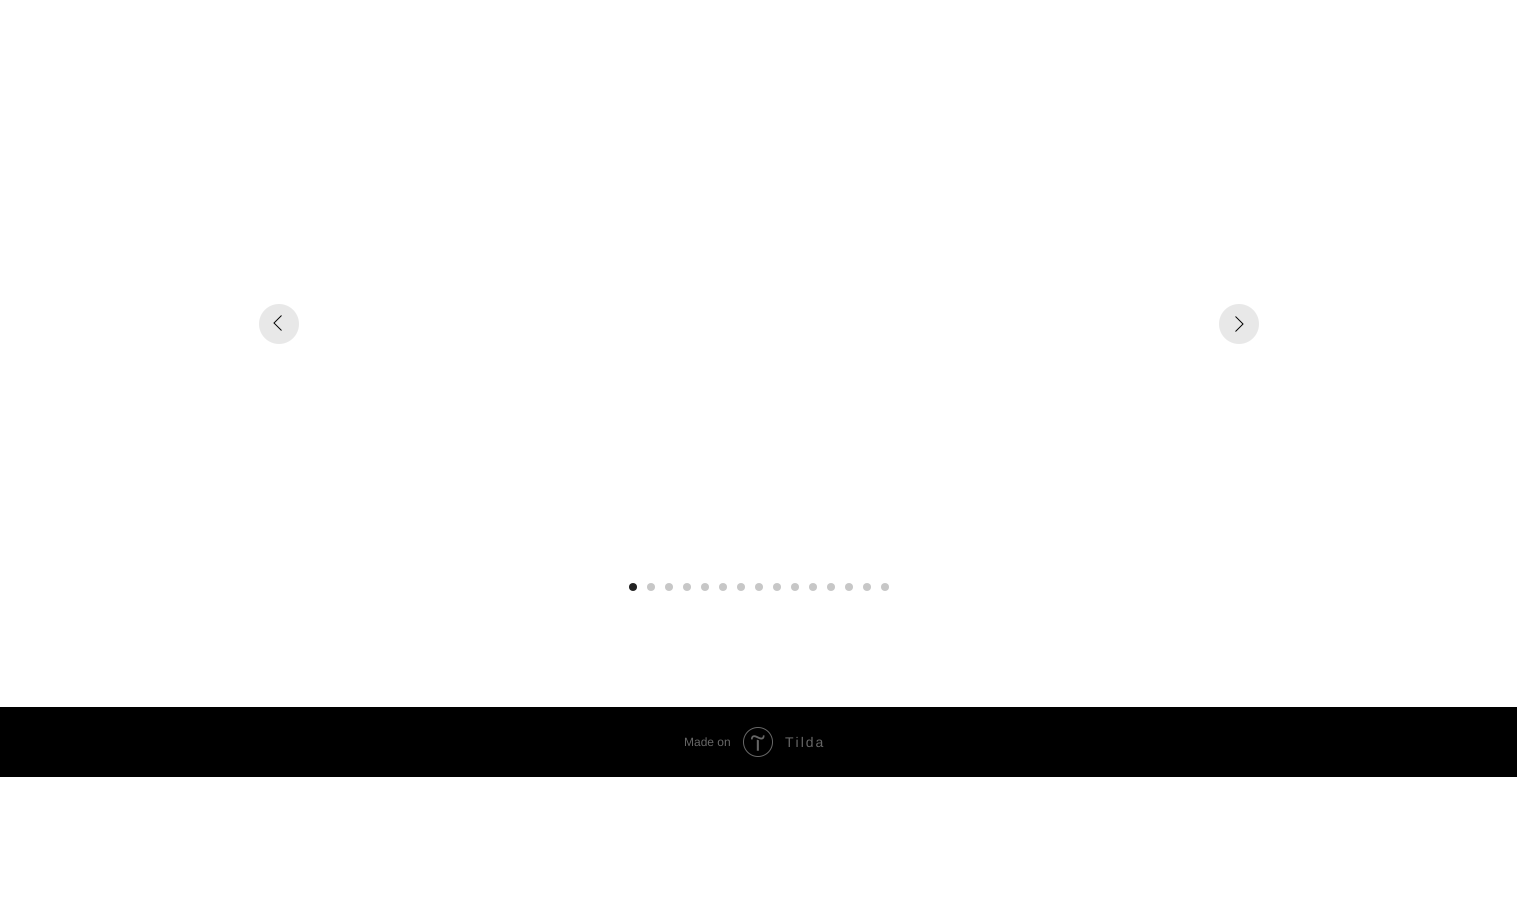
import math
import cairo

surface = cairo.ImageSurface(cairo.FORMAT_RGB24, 1517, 911)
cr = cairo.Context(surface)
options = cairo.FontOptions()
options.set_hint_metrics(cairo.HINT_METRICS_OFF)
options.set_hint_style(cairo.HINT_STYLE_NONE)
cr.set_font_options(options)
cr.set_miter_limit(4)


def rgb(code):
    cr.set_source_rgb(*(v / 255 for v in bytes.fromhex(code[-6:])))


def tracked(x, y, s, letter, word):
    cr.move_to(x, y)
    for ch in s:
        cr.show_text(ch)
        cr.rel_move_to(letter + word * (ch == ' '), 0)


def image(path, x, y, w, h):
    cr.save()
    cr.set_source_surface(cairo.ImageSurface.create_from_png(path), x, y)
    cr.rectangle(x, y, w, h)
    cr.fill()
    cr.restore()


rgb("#ffffff")
cr.paint()
rgb("#e8e8e8")
cr.arc(279, 324, 20, 0, 2 * math.pi)
cr.fill()
cr.new_path()
cr.move_to(281.5, 330.5)
cr.line_to(274, 323)
cr.line_to(281.5, 315.5)
rgb("#000000")
cr.set_line_width(1)
cr.stroke()
rgb("#e8e8e8")
cr.arc(1239, 324, 20, 0, 2 * math.pi)
cr.fill()
cr.new_path()
cr.move_to(1235.5, 316.5)
cr.line_to(1243, 324)
cr.line_to(1235.5, 331.5)
rgb("#000000")
cr.stroke()
rgb("#222222")
cr.arc(633, 587, 4, 0, 2 * math.pi)
cr.fill()
rgb("#c7c7c7")
cr.arc(651, 587, 4, 0, 2 * math.pi)
cr.fill()
cr.arc(669, 587, 4, 0, 2 * math.pi)
cr.fill()
cr.arc(687, 587, 4, 0, 2 * math.pi)
cr.fill()
cr.arc(705, 587, 4, 0, 2 * math.pi)
cr.fill()
cr.arc(723, 587, 4, 0, 2 * math.pi)
cr.fill()
cr.arc(741, 587, 4, 0, 2 * math.pi)
cr.fill()
cr.arc(759, 587, 4, 0, 2 * math.pi)
cr.fill()
cr.arc(777, 587, 4, 0, 2 * math.pi)
cr.fill()
cr.arc(795, 587, 4, 0, 2 * math.pi)
cr.fill()
cr.arc(813, 587, 4, 0, 2 * math.pi)
cr.fill()
cr.arc(831, 587, 4, 0, 2 * math.pi)
cr.fill()
cr.arc(849, 587, 4, 0, 2 * math.pi)
cr.fill()
cr.arc(867, 587, 4, 0, 2 * math.pi)
cr.fill()
cr.arc(885, 587, 4, 0, 2 * math.pi)
cr.fill()
rgb("#000000")
cr.rectangle(0, 707, 1517, 70)
cr.fill()
image("img/1.png", 743, 727, 30, 30)
cr.select_font_face("Liberation Sans")
cr.set_font_size(12)
rgb("#666666")
cr.move_to(684, 746)
cr.show_text("Made on")
cr.set_font_size(14)
tracked(785, 747, "Tilda", 2, 0)
surface.write_to_png("page.png")
